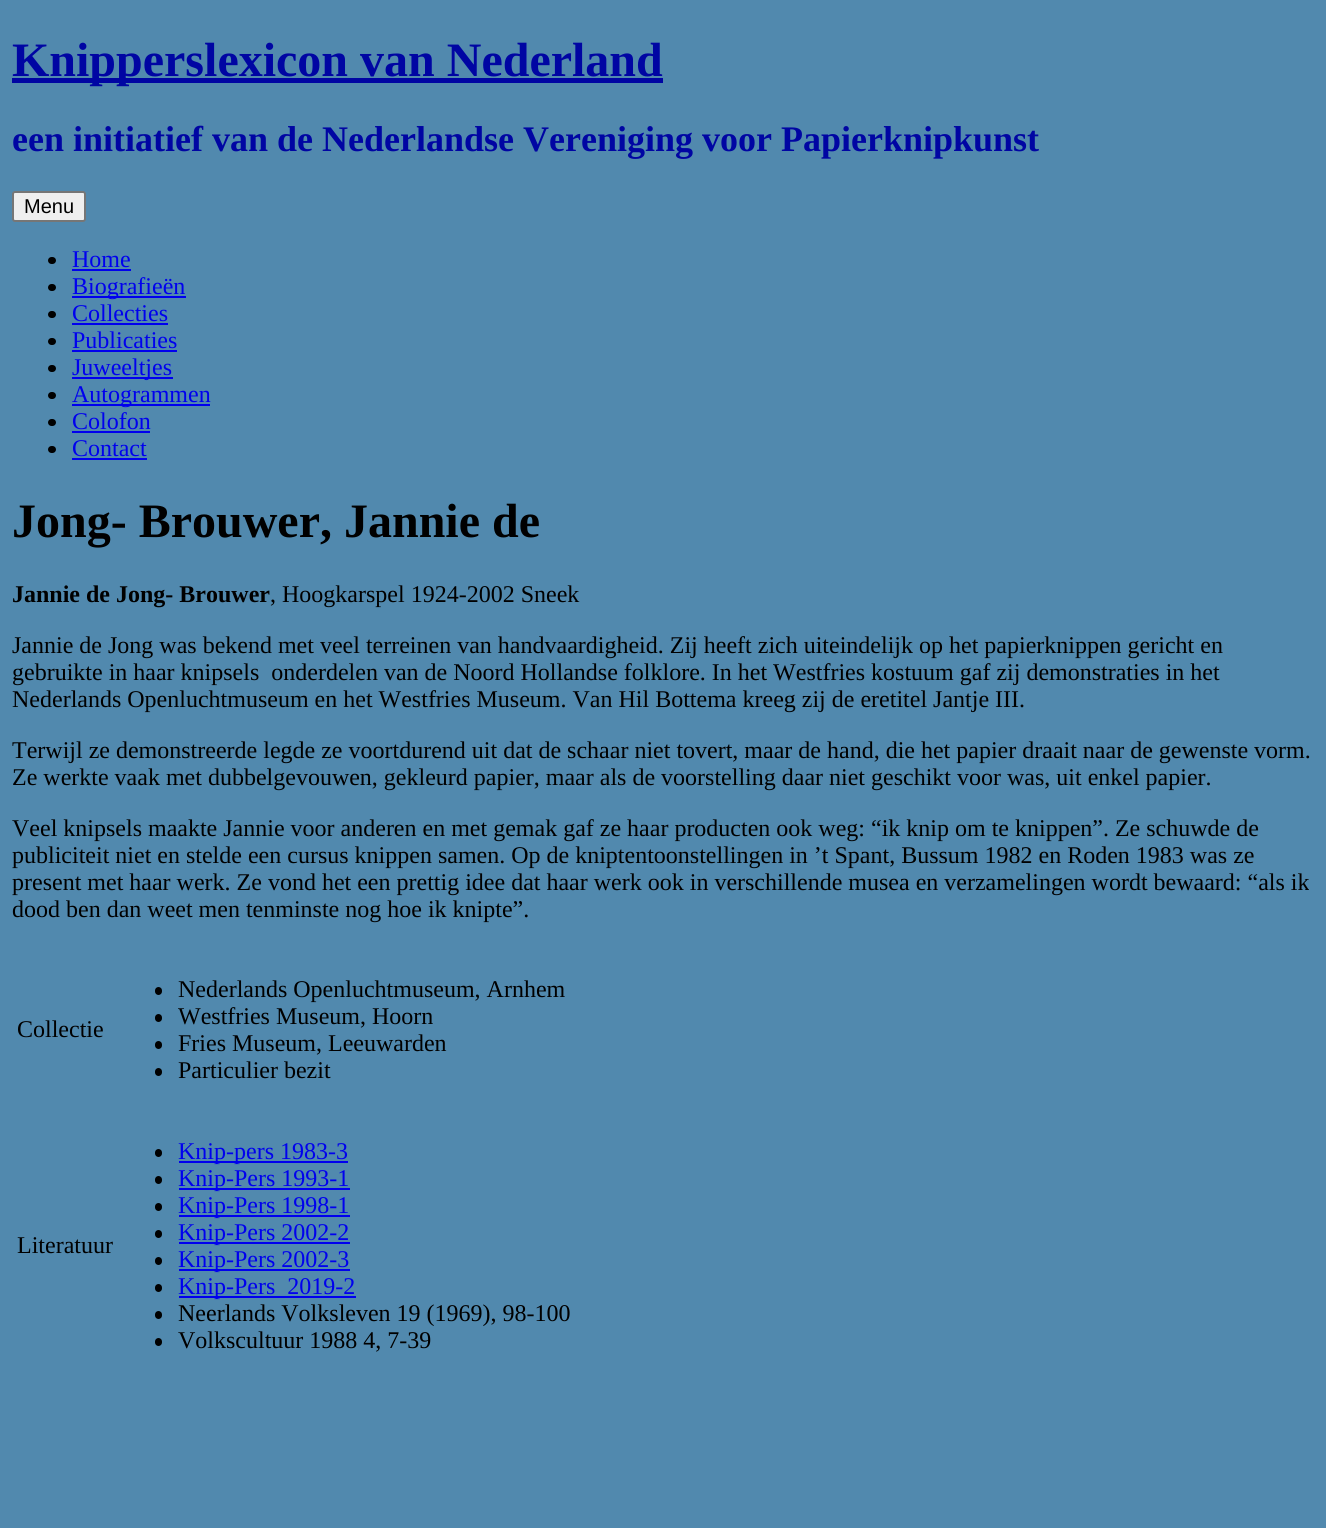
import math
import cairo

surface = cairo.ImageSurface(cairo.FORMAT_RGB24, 1326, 1528)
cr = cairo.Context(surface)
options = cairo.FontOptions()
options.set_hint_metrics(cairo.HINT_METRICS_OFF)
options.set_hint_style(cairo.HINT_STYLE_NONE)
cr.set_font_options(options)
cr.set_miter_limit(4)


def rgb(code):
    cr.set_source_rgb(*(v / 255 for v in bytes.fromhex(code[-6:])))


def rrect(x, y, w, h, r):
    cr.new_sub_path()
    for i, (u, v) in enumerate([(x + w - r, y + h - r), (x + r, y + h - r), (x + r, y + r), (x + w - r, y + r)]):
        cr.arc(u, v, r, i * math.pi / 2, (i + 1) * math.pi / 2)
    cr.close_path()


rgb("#5189ae")
cr.paint()
rgb("#0005a3")
cr.rectangle(12, 78, 651, 5)
cr.fill()
rgb("#efefef")
rrect(13, 192, 72, 29, 2)
cr.fill_preserve()
rgb("#767676")
cr.stroke()
rgb("#000000")
rrect(48, 257, 8, 7, 3.5)
cr.fill()
rgb("#0000ee")
cr.rectangle(72, 269, 59, 2)
cr.fill()
rgb("#000000")
rrect(48, 284, 8, 7, 3.5)
cr.fill()
rgb("#0000ee")
cr.rectangle(72, 296, 114, 2)
cr.fill()
rgb("#000000")
rrect(48, 311, 8, 7, 3.5)
cr.fill()
rgb("#0000ee")
cr.rectangle(72, 323, 96, 2)
cr.fill()
rgb("#000000")
rrect(48, 338, 8, 7, 3.5)
cr.fill()
rgb("#0000ee")
cr.rectangle(72, 350, 105, 2)
cr.fill()
rgb("#000000")
rrect(48, 365, 8, 7, 3.5)
cr.fill()
rgb("#0000ee")
cr.rectangle(72, 377, 101, 2)
cr.fill()
rgb("#000000")
rrect(48, 392, 8, 7, 3.5)
cr.fill()
rgb("#0000ee")
cr.rectangle(72, 404, 138, 2)
cr.fill()
rgb("#000000")
rrect(48, 419, 8, 7, 3.5)
cr.fill()
rgb("#0000ee")
cr.rectangle(72, 431, 78, 2)
cr.fill()
rgb("#000000")
rrect(48, 446, 8, 7, 3.5)
cr.fill()
rgb("#0000ee")
cr.rectangle(72, 458, 75, 2)
cr.fill()
rgb("#000000")
rrect(155, 987, 7, 8, 3.5)
cr.fill()
rrect(155, 1014, 7, 8, 3.5)
cr.fill()
rrect(155, 1041, 7, 8, 3.5)
cr.fill()
rrect(155, 1068, 7, 8, 3.5)
cr.fill()
rrect(155, 1149, 7, 8, 3.5)
cr.fill()
rgb("#0000ee")
cr.rectangle(179, 1161, 169, 2)
cr.fill()
rgb("#000000")
rrect(155, 1176, 7, 8, 3.5)
cr.fill()
rgb("#0000ee")
cr.rectangle(179, 1188, 171, 2)
cr.fill()
rgb("#000000")
rrect(155, 1203, 7, 8, 3.5)
cr.fill()
rgb("#0000ee")
cr.rectangle(179, 1215, 171, 2)
cr.fill()
rgb("#000000")
rrect(155, 1230, 7, 8, 3.5)
cr.fill()
rgb("#0000ee")
cr.rectangle(179, 1242, 171, 2)
cr.fill()
rgb("#000000")
rrect(155, 1257, 7, 8, 3.5)
cr.fill()
rgb("#0000ee")
cr.rectangle(179, 1269, 171, 2)
cr.fill()
rgb("#000000")
rrect(155, 1284, 7, 8, 3.5)
cr.fill()
rgb("#0000ee")
cr.rectangle(179, 1296, 177, 2)
cr.fill()
rgb("#000000")
rrect(155, 1311, 7, 8, 3.5)
cr.fill()
rrect(155, 1338, 7, 8, 3.5)
cr.fill()
cr.select_font_face("Liberation Serif", cairo.FONT_SLANT_NORMAL, cairo.FONT_WEIGHT_BOLD)
cr.set_font_size(48)
rgb("#0005a3")
cr.move_to(12, 76)
cr.show_text("Knipperslexicon van Nederland")
cr.set_font_size(36)
cr.move_to(12, 151)
cr.show_text("een initiatief van de Nederlandse Vereniging voor Papierknipkunst")
cr.select_font_face("Liberation Sans")
cr.set_font_size(20)
rgb("#000000")
cr.move_to(24, 213)
cr.show_text("Menu")
cr.select_font_face("Liberation Serif")
cr.set_font_size(24)
rgb("#0000ee")
for x, y, s in [
    (72, 267, "Home"),
    (72, 294, "Biografieën"),
    (72, 321, "Collecties"),
    (72, 348, "Publicaties"),
    (72, 375, "Juweeltjes"),
    (72, 402, "Autogrammen"),
    (72, 429, "Colofon"),
    (72, 456, "Contact"),
]:
    cr.move_to(x, y)
    cr.show_text(s)
cr.select_font_face("Liberation Serif", cairo.FONT_SLANT_NORMAL, cairo.FONT_WEIGHT_BOLD)
cr.set_font_size(48)
rgb("#000000")
cr.move_to(12, 537)
cr.show_text("Jong- Brouwer, Jannie de")
cr.set_font_size(24)
cr.move_to(12, 602)
cr.show_text("Jannie de Jong- Brouwer")
cr.select_font_face("Liberation Serif")
for x, y, s in [
    (270, 602, ", Hoogkarspel 1924-2002 Sneek"),
    (12, 653, "Jannie de Jong was bekend met veel terreinen van handvaardigheid. Zij heeft zich uiteindelijk op het papierknippen gericht en"),
    (12, 680, "gebruikte in haar knipsels  onderdelen van de Noord Hollandse folklore. In het Westfries kostuum gaf zij demonstraties in het"),
    (12, 707, "Nederlands Openluchtmuseum en het Westfries Museum. Van Hil Bottema kreeg zij de eretitel Jantje III."),
    (12, 758, "Terwijl ze demonstreerde legde ze voortdurend uit dat de schaar niet tovert, maar de hand, die het papier draait naar de gewenste vorm."),
    (12, 785, "Ze werkte vaak met dubbelgevouwen, gekleurd papier, maar als de voorstelling daar niet geschikt voor was, uit enkel papier."),
    (12, 836, "Veel knipsels maakte Jannie voor anderen en met gemak gaf ze haar producten ook weg: “ik knip om te knippen”. Ze schuwde de"),
    (12, 863, "publiciteit niet en stelde een cursus knippen samen. Op de kniptentoonstellingen in ’t Spant, Bussum 1982 en Roden 1983 was ze"),
    (12, 890, "present met haar werk. Ze vond het een prettig idee dat haar werk ook in verschillende musea en verzamelingen wordt bewaard: “als ik"),
    (12, 917, "dood ben dan weet men tenminste nog hoe ik knipte”."),
    (17, 1037, "Collectie"),
    (178, 997, "Nederlands Openluchtmuseum, Arnhem"),
    (178, 1024, "Westfries Museum, Hoorn"),
    (178, 1051, "Fries Museum, Leeuwarden"),
    (178, 1078, "Particulier bezit"),
    (17, 1253, "Literatuur"),
]:
    cr.move_to(x, y)
    cr.show_text(s)
rgb("#0000ee")
for x, y, s in [
    (178, 1159, "Knip-pers 1983-3"),
    (178, 1186, "Knip-Pers 1993-1"),
    (178, 1213, "Knip-Pers 1998-1"),
    (178, 1240, "Knip-Pers 2002-2"),
    (178, 1267, "Knip-Pers 2002-3"),
    (178, 1294, "Knip-Pers  2019-2"),
]:
    cr.move_to(x, y)
    cr.show_text(s)
rgb("#000000")
cr.move_to(178, 1321)
cr.show_text("Neerlands Volksleven 19 (1969), 98-100")
cr.move_to(178, 1348)
cr.show_text("Volkscultuur 1988 4, 7-39")
surface.write_to_png("page.png")
